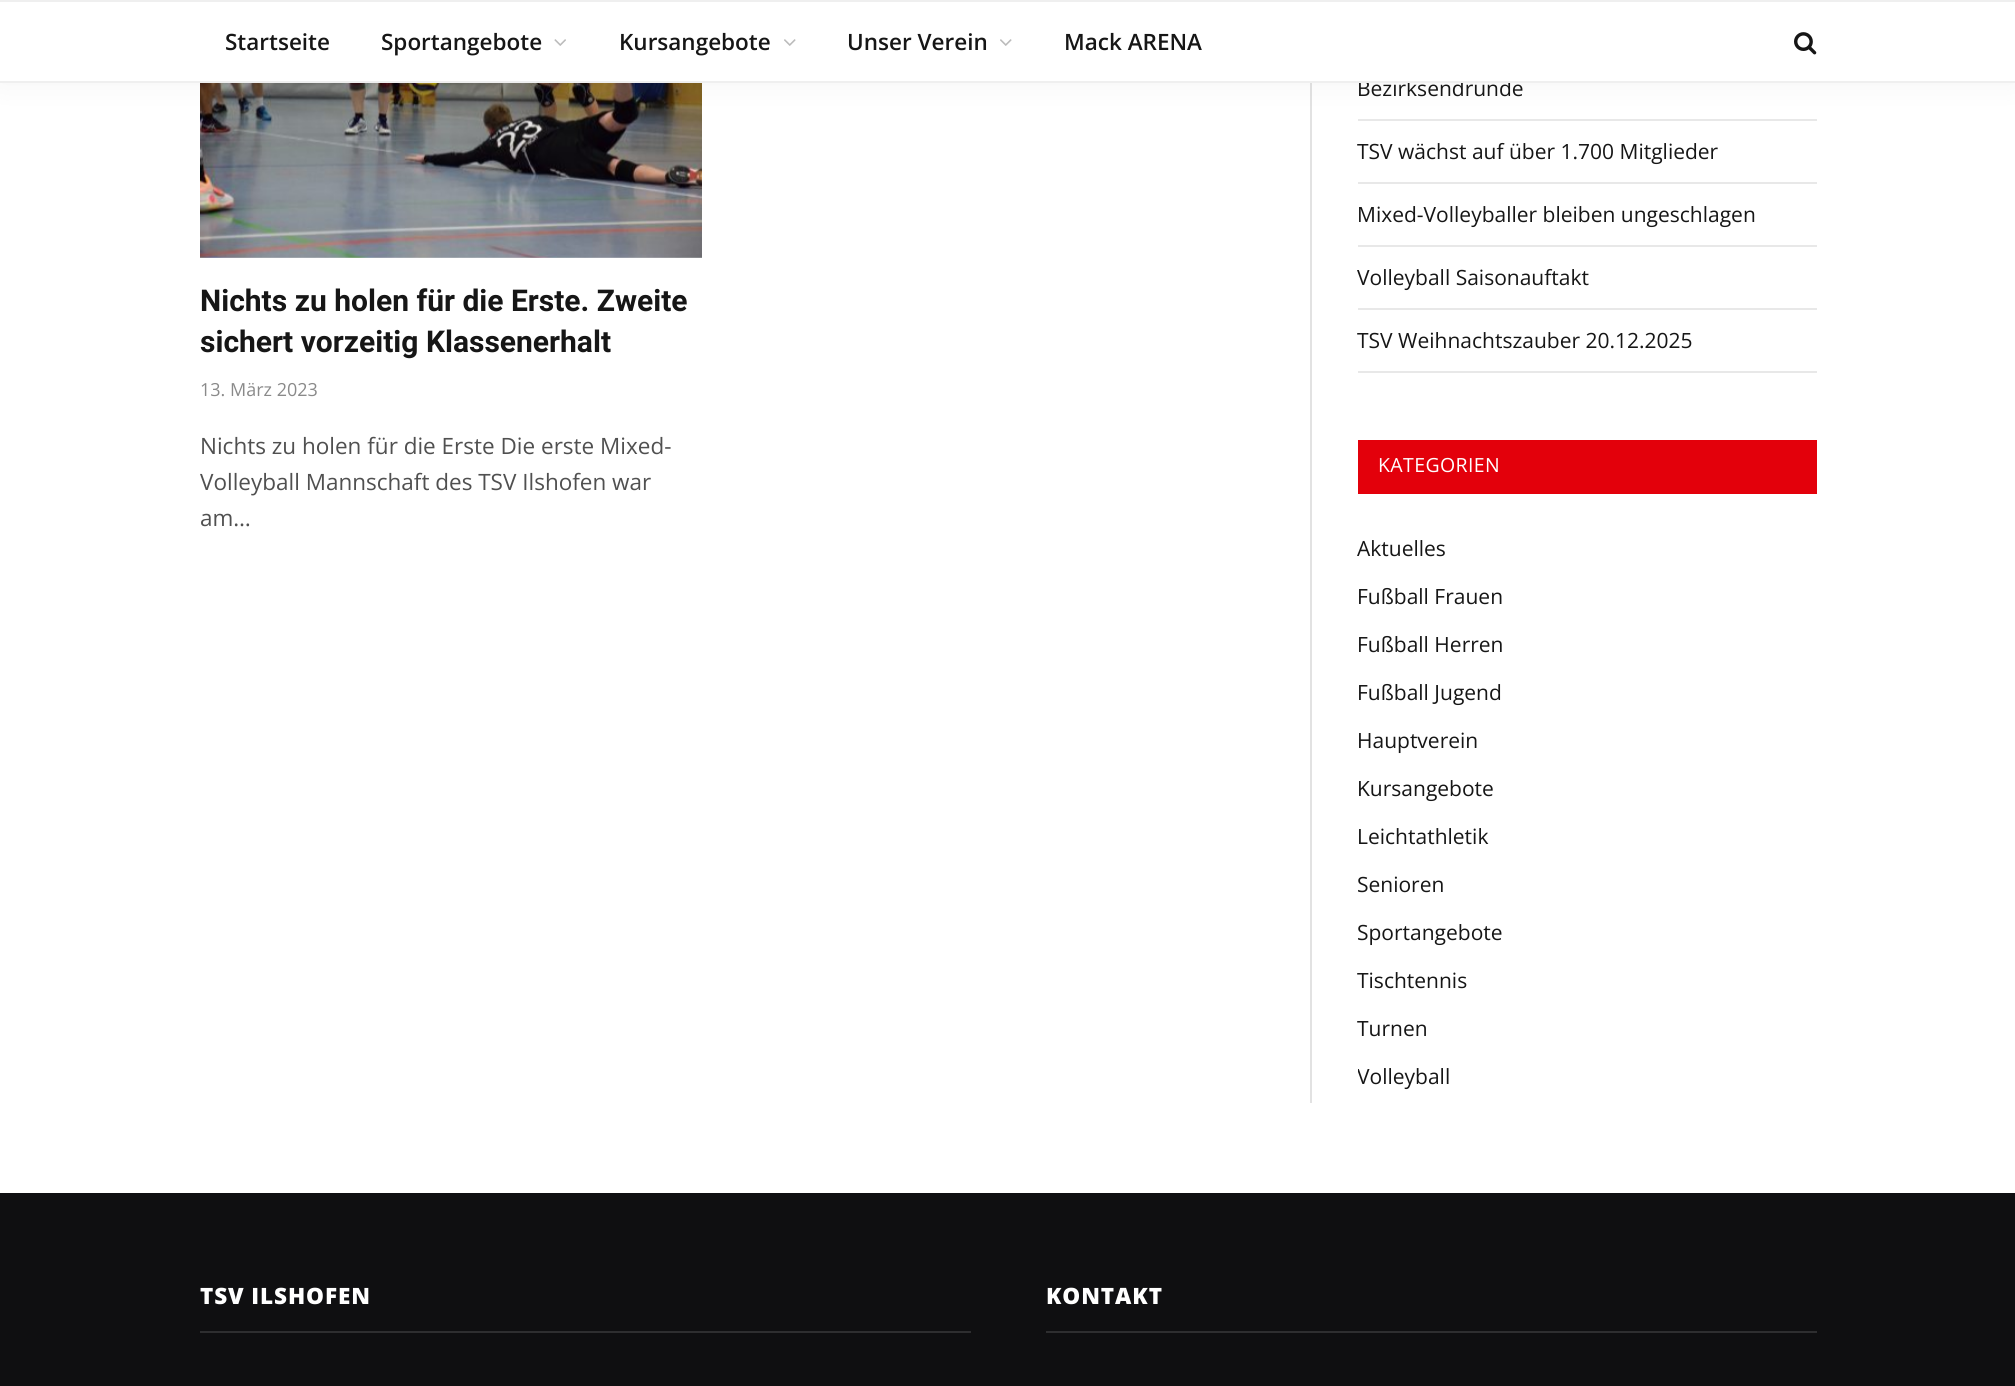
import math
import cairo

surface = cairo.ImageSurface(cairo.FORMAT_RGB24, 2015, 1386)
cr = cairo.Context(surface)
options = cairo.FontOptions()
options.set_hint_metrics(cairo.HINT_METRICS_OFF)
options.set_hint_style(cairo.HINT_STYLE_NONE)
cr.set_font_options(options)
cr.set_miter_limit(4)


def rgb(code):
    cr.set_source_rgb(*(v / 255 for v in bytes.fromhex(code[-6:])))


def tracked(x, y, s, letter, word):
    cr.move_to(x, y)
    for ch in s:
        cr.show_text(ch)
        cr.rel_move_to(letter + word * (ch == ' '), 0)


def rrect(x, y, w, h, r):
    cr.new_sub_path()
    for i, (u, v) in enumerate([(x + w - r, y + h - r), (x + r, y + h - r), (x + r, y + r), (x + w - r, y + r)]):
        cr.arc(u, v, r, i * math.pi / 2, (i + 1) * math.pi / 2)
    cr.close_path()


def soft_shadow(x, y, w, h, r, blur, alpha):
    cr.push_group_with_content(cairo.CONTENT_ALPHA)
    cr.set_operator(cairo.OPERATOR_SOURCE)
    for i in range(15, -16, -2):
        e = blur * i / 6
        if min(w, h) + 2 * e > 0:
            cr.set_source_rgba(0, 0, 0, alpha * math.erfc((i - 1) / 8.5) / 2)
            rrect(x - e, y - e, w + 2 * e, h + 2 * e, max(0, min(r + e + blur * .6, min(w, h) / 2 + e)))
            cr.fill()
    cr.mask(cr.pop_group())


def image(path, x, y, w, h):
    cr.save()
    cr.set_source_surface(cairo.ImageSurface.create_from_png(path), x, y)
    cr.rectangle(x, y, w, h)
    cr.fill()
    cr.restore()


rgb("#ffffff")
cr.paint()
image("img/4.png", 200, 83, 502, 175)
rgb("#e2e2e2")
cr.rectangle(1310, 83, 2, 1020)
cr.fill()
rgb("#e8e8e8")
cr.rectangle(1358, 119, 459, 2)
cr.fill()
rgb("#000000")
soft_shadow(0, 0, 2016, 83, 0, 15, 0.05)
for x, y, w, h, color in [
    (0, 0, 2015, 2, "#efefef"),
    (1358, 182, 459, 2, "#e8e8e8"),
    (1358, 245, 459, 2, "#e8e8e8"),
    (1358, 308, 459, 2, "#e8e8e8"),
    (1358, 371, 459, 2, "#e8e8e8"),
    (1358, 440, 459, 54, "#e3000b"),
    (0, 1193, 2015, 193, "#0f0f11"),
    (200, 1331, 771, 2, "#2e2e30"),
    (1046, 1331, 771, 2, "#2e2e30"),
]:
    rgb(color)
    cr.rectangle(x, y, w, h)
    cr.fill()
cr.select_font_face("Roboto", cairo.FONT_SLANT_NORMAL, cairo.FONT_WEIGHT_BOLD)
cr.set_font_size(30)
rgb("#161616")
cr.move_to(200, 311)
cr.show_text("Nichts zu holen für die Erste. Zweite")
cr.move_to(200, 352)
cr.show_text("sichert vorzeitig Klassenerhalt")
cr.select_font_face("Open Sans")
cr.set_font_size(18)
rgb("#8a8a8a")
cr.move_to(200, 396)
cr.show_text("13. März 2023")
cr.set_font_size(22.5)
rgb("#505050")
for x, y, s in [
    (200, 454, "Nichts zu holen für die Erste Die erste Mixed-"),
    (200, 490, "Volleyball Mannschaft des TSV Ilshofen war"),
    (200, 526, "am…"),
]:
    cr.move_to(x, y)
    cr.show_text(s)
cr.set_font_size(21)
rgb("#161616")
cr.move_to(1357, 96)
cr.show_text("Bezirksendrunde")
rgb("#ffffff")
cr.rectangle(0, 2, 2015, 79)
cr.fill()
cr.select_font_face("Open Sans SemiBold")
cr.set_font_size(22.5)
rgb("#161616")
cr.move_to(1064, 50)
cr.show_text("Mack ARENA")
image("img/2.png", 1000, 39, 12, 7)
cr.move_to(847, 50)
cr.show_text("Unser Verein")
image("img/2.png", 784, 39, 12, 7)
cr.move_to(619, 50)
cr.show_text("Kursangebote")
image("img/1.png", 554, 39, 12, 7)
cr.move_to(381, 50)
cr.show_text("Sportangebote")
cr.move_to(225, 50)
cr.show_text("Startseite")
image("img/3.png", 1794, 32, 23, 23)
rgb("#efefef")
cr.rectangle(0, 81, 2015, 2)
cr.fill()
cr.select_font_face("Open Sans")
cr.set_font_size(21)
rgb("#161616")
for x, y, s in [
    (1357, 159, "TSV wächst auf über 1.700 Mitglieder"),
    (1357, 222, "Mixed-Volleyballer bleiben ungeschlagen"),
    (1357, 285, "Volleyball Saisonauftakt"),
    (1357, 348, "TSV Weihnachtszauber 20.12.2025"),
]:
    cr.move_to(x, y)
    cr.show_text(s)
cr.set_font_size(19.5)
rgb("#ffffff")
tracked(1378, 472, "KATEGORIEN", 0.4, 0)
cr.set_font_size(21)
rgb("#161616")
for x, y, s in [
    (1357, 556, "Aktuelles"),
    (1357, 604, "Fußball Frauen"),
    (1357, 652, "Fußball Herren"),
    (1357, 700, "Fußball Jugend"),
    (1357, 748, "Hauptverein"),
    (1357, 796, "Kursangebote"),
    (1357, 844, "Leichtathletik"),
    (1357, 892, "Senioren"),
    (1357, 940, "Sportangebote"),
    (1357, 988, "Tischtennis"),
    (1357, 1036, "Turnen"),
]:
    cr.move_to(x, y)
    cr.show_text(s)
cr.save()
cr.rectangle(1358, 1053, 459, 47)
cr.clip()
cr.move_to(1357, 1084)
cr.show_text("Volleyball")
cr.restore()
cr.select_font_face("Open Sans ExtraBold")
cr.set_font_size(22.5)
rgb("#ffffff")
tracked(200, 1304, "TSV ILSHOFEN", 0.9, 0)
tracked(1046, 1304, "KONTAKT", 0.9, 0)
surface.write_to_png("page.png")
